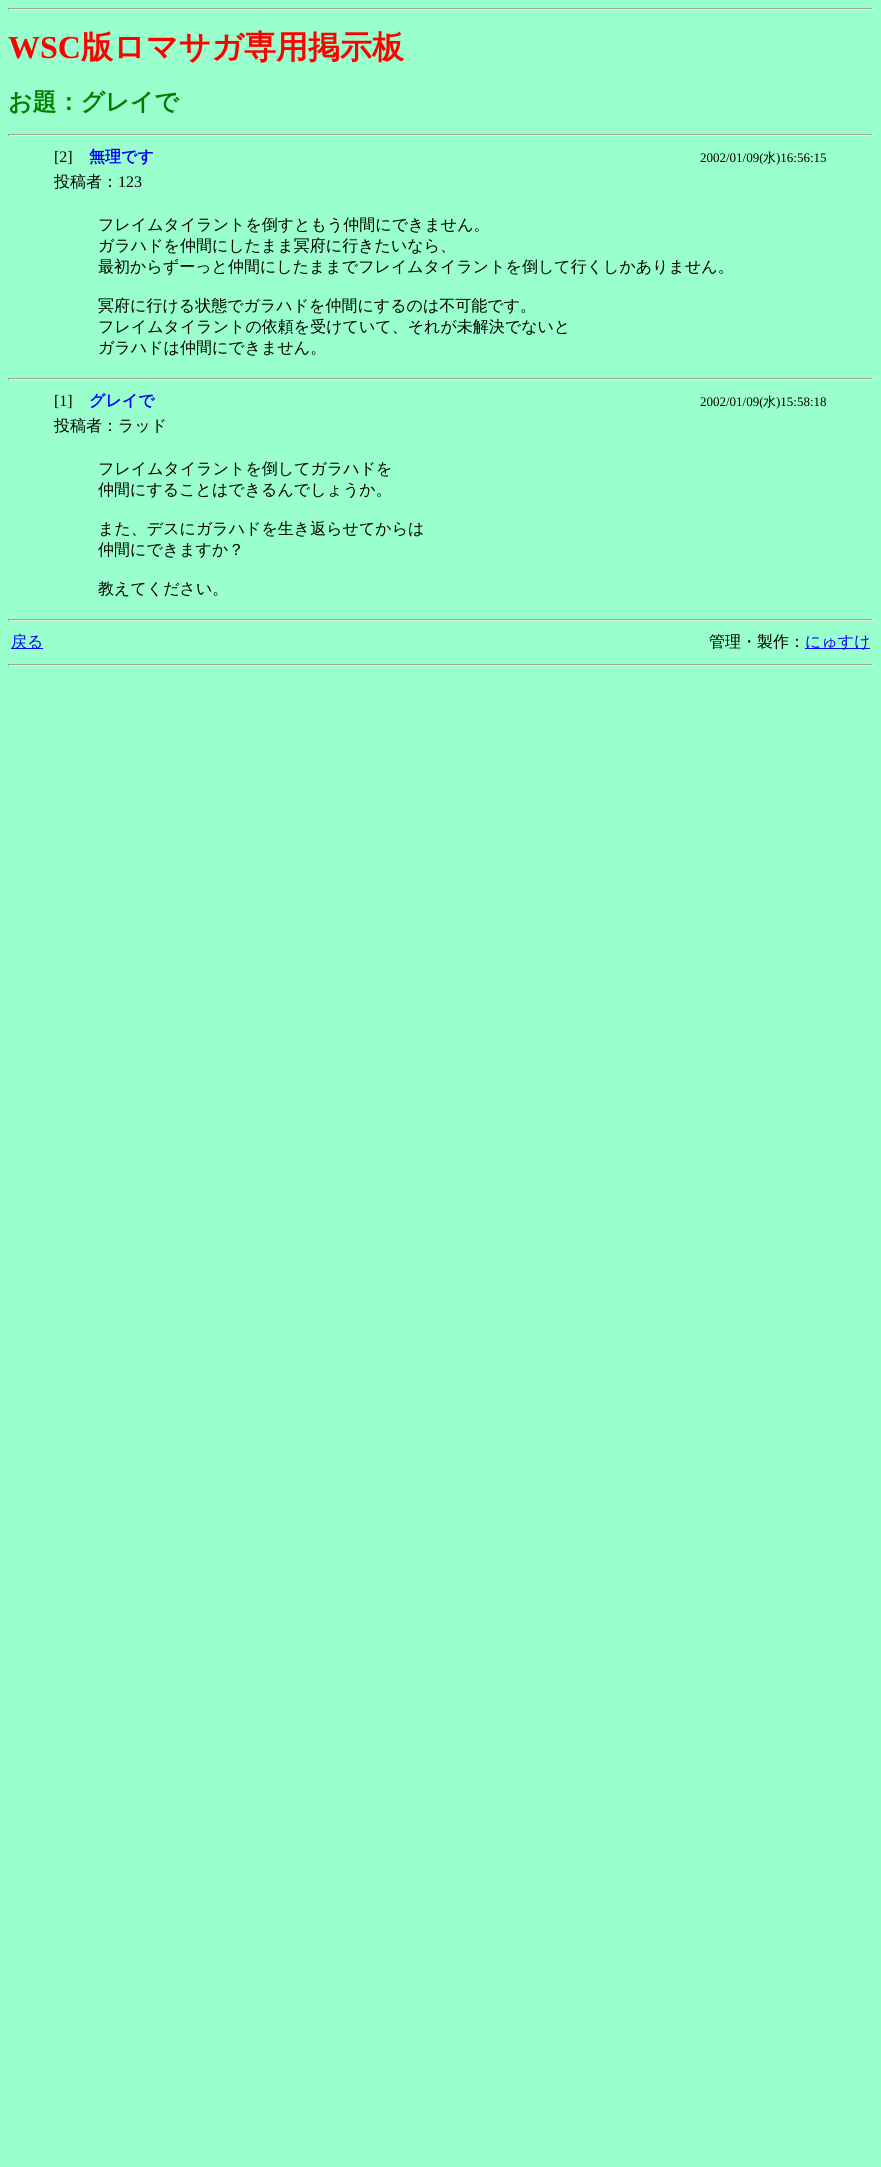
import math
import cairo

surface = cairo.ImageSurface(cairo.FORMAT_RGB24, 881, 2167)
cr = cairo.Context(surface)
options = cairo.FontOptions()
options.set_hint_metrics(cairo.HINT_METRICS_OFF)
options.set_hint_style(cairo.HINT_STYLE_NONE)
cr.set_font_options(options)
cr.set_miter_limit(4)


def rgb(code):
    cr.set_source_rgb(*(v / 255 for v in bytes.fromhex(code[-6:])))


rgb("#99ffcc")
cr.paint()
for x, y, w, h, color in [
    (8, 8, 865, 1, "#9f9f9f"),
    (872, 8, 1, 2, "#eeeeee"),
    (8, 9, 865, 1, "#eeeeee"),
    (8, 8, 1, 2, "#9f9f9f"),
    (8, 134, 865, 1, "#9f9f9f"),
    (872, 134, 1, 2, "#eeeeee"),
    (8, 135, 865, 1, "#eeeeee"),
    (8, 134, 1, 2, "#9f9f9f"),
    (8, 378, 865, 1, "#9f9f9f"),
    (872, 378, 1, 2, "#eeeeee"),
    (8, 379, 865, 1, "#eeeeee"),
    (8, 378, 1, 2, "#9f9f9f"),
    (8, 619, 865, 1, "#9f9f9f"),
    (872, 619, 1, 2, "#eeeeee"),
    (8, 620, 865, 1, "#eeeeee"),
    (8, 619, 1, 2, "#9f9f9f"),
    (11, 648, 32, 1, "#0000ff"),
    (805, 648, 65, 1, "#0000ff"),
    (8, 664, 865, 1, "#9f9f9f"),
    (872, 664, 1, 2, "#eeeeee"),
    (8, 665, 865, 1, "#eeeeee"),
    (8, 664, 1, 2, "#9f9f9f"),
]:
    rgb(color)
    cr.rectangle(x, y, w, h)
    cr.fill()
cr.select_font_face("Liberation Serif", cairo.FONT_SLANT_NORMAL, cairo.FONT_WEIGHT_BOLD)
cr.set_font_size(32)
rgb("#ff0000")
cr.move_to(8, 58)
cr.show_text("WSC")
cr.select_font_face("WenQuanYi Zen Hei", cairo.FONT_SLANT_NORMAL, cairo.FONT_WEIGHT_BOLD)
cr.move_to(81, 58)
cr.show_text("版ロマサガ専用掲示板")
cr.set_font_size(24)
rgb("#008000")
cr.move_to(8, 110)
cr.show_text("お題：グレイで")
cr.select_font_face("Liberation Serif")
cr.set_font_size(16)
rgb("#000000")
cr.move_to(54, 162)
cr.show_text("[2]")
cr.select_font_face("WenQuanYi Zen Hei", cairo.FONT_SLANT_NORMAL, cairo.FONT_WEIGHT_BOLD)
rgb("#0000ff")
cr.move_to(89, 162)
cr.show_text("無理です")
cr.select_font_face("Liberation Serif")
cr.set_font_size(13)
rgb("#000000")
cr.move_to(700, 162)
cr.show_text("2002/01/09(")
cr.select_font_face("WenQuanYi Zen Hei Medium")
cr.move_to(763, 162)
cr.show_text("水")
cr.select_font_face("Liberation Serif")
cr.move_to(776, 162)
cr.show_text(")16:56:15")
cr.select_font_face("WenQuanYi Zen Hei Medium")
cr.set_font_size(16)
cr.move_to(54, 187)
cr.show_text("投稿者：")
cr.select_font_face("Liberation Serif")
cr.move_to(118, 187)
cr.show_text("123")
cr.select_font_face("WenQuanYi Zen Hei Medium")
for x, y, s in [
    (98, 230, "フレイムタイラントを倒すともう仲間にできません。"),
    (98, 251, "ガラハドを仲間にしたまま冥府に行きたいなら、"),
    (98, 272, "最初からずーっと仲間にしたままでフレイムタイラントを倒して行くしかありません。"),
    (98, 311, "冥府に行ける状態でガラハドを仲間にするのは不可能です。"),
    (98, 332, "フレイムタイラントの依頼を受けていて、それが未解決でないと"),
    (98, 353, "ガラハドは仲間にできません。"),
]:
    cr.move_to(x, y)
    cr.show_text(s)
cr.select_font_face("Liberation Serif")
cr.move_to(54, 406)
cr.show_text("[1]")
cr.select_font_face("WenQuanYi Zen Hei", cairo.FONT_SLANT_NORMAL, cairo.FONT_WEIGHT_BOLD)
rgb("#0000ff")
cr.move_to(89, 406)
cr.show_text("グレイで")
cr.select_font_face("Liberation Serif")
cr.set_font_size(13)
rgb("#000000")
cr.move_to(700, 406)
cr.show_text("2002/01/09(")
cr.select_font_face("WenQuanYi Zen Hei Medium")
cr.move_to(763, 406)
cr.show_text("水")
cr.select_font_face("Liberation Serif")
cr.move_to(776, 406)
cr.show_text(")15:58:18")
cr.select_font_face("WenQuanYi Zen Hei Medium")
cr.set_font_size(16)
for x, y, s in [
    (54, 431, "投稿者：ラッド"),
    (98, 474, "フレイムタイラントを倒してガラハドを"),
    (98, 495, "仲間にすることはできるんでしょうか。"),
    (98, 534, "また、デスにガラハドを生き返らせてからは"),
    (98, 555, "仲間にできますか？"),
    (98, 594, "教えてください。"),
]:
    cr.move_to(x, y)
    cr.show_text(s)
rgb("#0000ff")
cr.move_to(11, 647)
cr.show_text("戻る")
rgb("#000000")
cr.move_to(709, 647)
cr.show_text("管理・製作：")
rgb("#0000ff")
cr.move_to(805, 647)
cr.show_text("にゅすけ")
surface.write_to_png("page.png")
